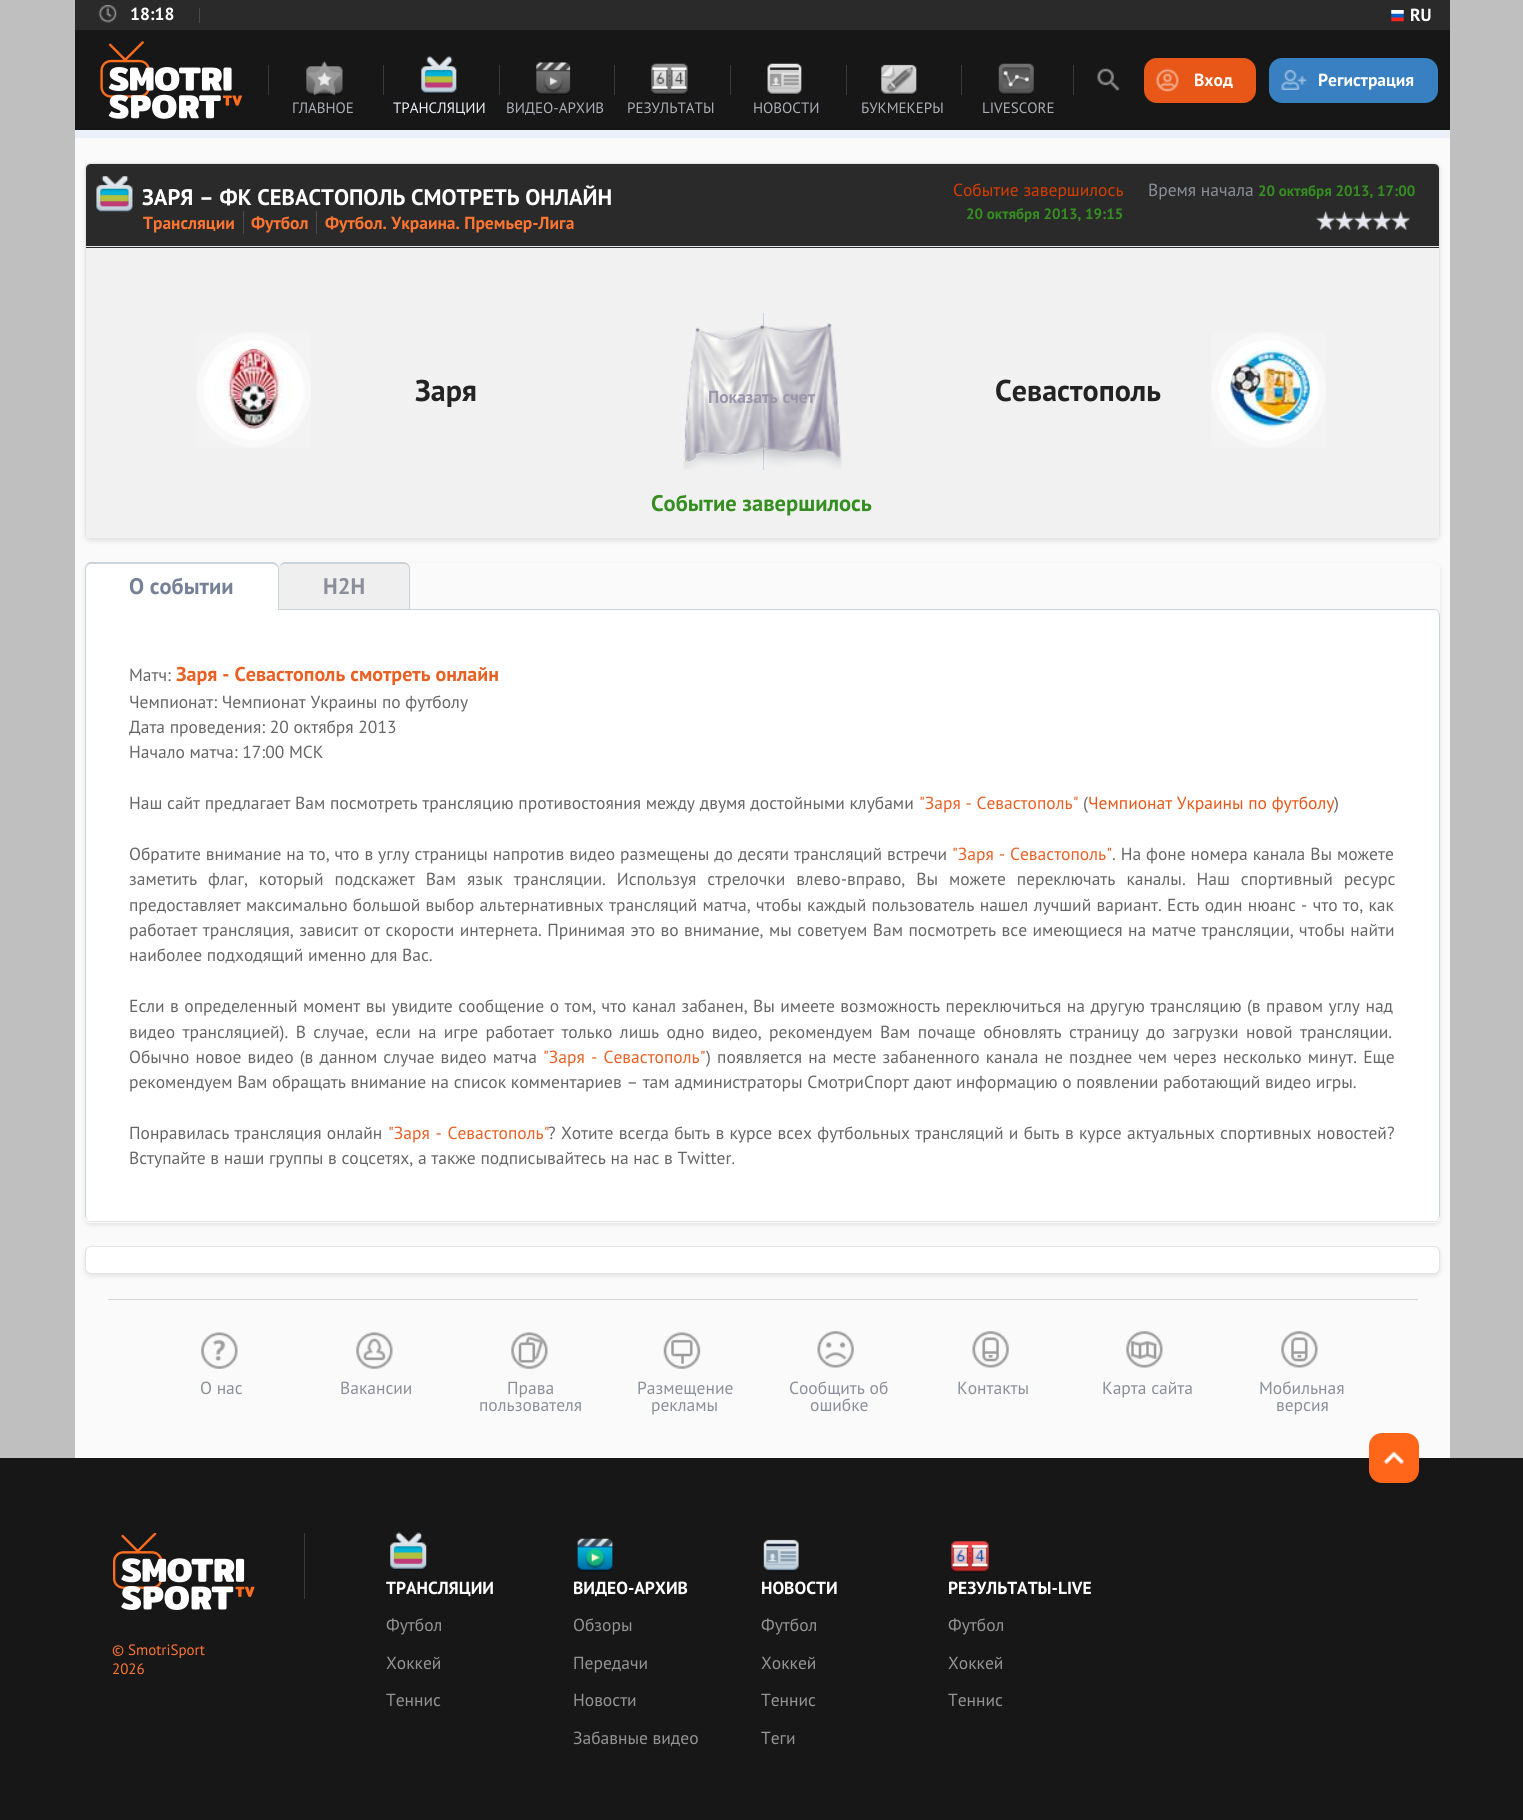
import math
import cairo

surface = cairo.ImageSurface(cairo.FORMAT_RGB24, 1523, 1820)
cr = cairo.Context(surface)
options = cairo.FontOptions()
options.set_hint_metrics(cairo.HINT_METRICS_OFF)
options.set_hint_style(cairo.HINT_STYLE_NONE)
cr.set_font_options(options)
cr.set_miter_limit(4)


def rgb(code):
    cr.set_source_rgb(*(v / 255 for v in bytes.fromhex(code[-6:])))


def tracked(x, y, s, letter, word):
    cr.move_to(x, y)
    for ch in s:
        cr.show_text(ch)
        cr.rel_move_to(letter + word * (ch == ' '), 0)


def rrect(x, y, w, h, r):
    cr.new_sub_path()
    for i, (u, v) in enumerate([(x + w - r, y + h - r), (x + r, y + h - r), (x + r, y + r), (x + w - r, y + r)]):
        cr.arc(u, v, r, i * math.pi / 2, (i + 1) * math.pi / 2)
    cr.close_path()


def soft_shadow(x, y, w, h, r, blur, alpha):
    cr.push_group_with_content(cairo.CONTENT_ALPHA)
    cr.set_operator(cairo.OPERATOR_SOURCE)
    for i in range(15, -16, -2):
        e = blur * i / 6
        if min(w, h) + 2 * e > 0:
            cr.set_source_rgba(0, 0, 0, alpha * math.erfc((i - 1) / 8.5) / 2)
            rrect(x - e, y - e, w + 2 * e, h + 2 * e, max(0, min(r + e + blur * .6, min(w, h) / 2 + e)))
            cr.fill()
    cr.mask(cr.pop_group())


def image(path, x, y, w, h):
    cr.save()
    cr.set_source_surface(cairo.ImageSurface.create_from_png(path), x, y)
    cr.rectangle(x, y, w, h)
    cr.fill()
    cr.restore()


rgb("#bfbfbf")
cr.paint()
rgb("#2a2a2a")
cr.rectangle(75, 0, 1375, 30)
cr.fill()
image("img/1.png", 98, 5, 19, 18)
rgb("#4a4a4a")
cr.rectangle(199, 8, 1, 15)
cr.fill()
image("img/2.png", 1391, 10, 13, 12)
rgb("#171717")
cr.rectangle(75, 30, 1375, 100)
cr.fill()
image("img/3.png", 100, 41, 142, 78)
image("img/4.png", 1097, 68, 23, 23)
rgb("#e85717")
rrect(1144, 58, 112, 45, 13)
cr.fill()
image("img/5.png", 1156, 68, 23, 24)
rgb("#3880c2")
rrect(1269, 58, 169, 45, 13)
cr.fill()
image("img/6.png", 1281, 70, 26, 20)
rgb("#3a3a3a")
cr.rectangle(268, 65, 1, 30)
cr.fill()
image("img/7.png", 306, 61, 37, 35)
cr.rectangle(383, 65, 1, 30)
cr.fill()
image("img/8.png", 421, 56, 36, 38)
cr.rectangle(499, 65, 1, 30)
cr.fill()
image("img/9.png", 536, 62, 35, 33)
cr.rectangle(614, 65, 1, 30)
cr.fill()
image("img/10.png", 651, 63, 37, 32)
cr.rectangle(730, 65, 1, 30)
cr.fill()
image("img/11.png", 767, 63, 35, 32)
cr.rectangle(846, 65, 1, 30)
cr.fill()
image("img/12.png", 881, 64, 36, 31)
cr.rectangle(961, 65, 1, 30)
cr.fill()
cr.rectangle(1073, 65, 1, 30)
cr.fill()
image("img/13.png", 998, 63, 36, 32)
rgb("#ebeff7")
cr.rectangle(75, 130, 1375, 8)
cr.fill()
rgb("#fafafa")
cr.rectangle(75, 138, 1375, 1320)
cr.fill()
rgb("#000000")
soft_shadow(85, 165, 1355, 376, 6, 2.5, 0.1)
rrect(85.5, 163.5, 1354, 375, 5.5)
rgb("#e4e4e4")
cr.set_line_width(1)
cr.stroke()
rgb("#2a2a2a")
cr.new_path()
cr.move_to(91, 164)
cr.line_to(1434, 164)
cr.curve_to(1437, 164, 1439, 166, 1439, 169)
cr.line_to(1439, 248)
cr.line_to(86, 248)
cr.line_to(86, 169)
cr.curve_to(86, 166, 88, 164, 91, 164)
cr.close_path()
cr.fill()
rgb("#e6ebf0")
cr.rectangle(86, 246, 1353, 1)
cr.fill()
image("img/14.png", 95, 176, 38, 36)
rgb("#4a4a4a")
cr.rectangle(243, 211, 1, 23)
cr.fill()
cr.rectangle(316, 211, 1, 23)
cr.fill()
image("img/15.png", 1316, 211, 19, 19)
image("img/16.png", 1335, 211, 19, 19)
image("img/17.png", 1353, 211, 20, 19)
image("img/18.png", 1372, 211, 20, 19)
image("img/19.png", 1391, 211, 19, 19)
rgb("#f1f1f1")
cr.rectangle(86, 248, 1353, 290)
cr.fill()
image("img/20.png", 196, 332, 115, 116)
image("img/21.png", 214, 348, 79, 81)
rgb("#cad3da")
cr.rectangle(763, 313, 1, 157)
cr.fill()
image("img/20.png", 1211, 332, 115, 116)
image("img/22.png", 1230, 349, 80, 80)
image("img/23.png", 683, 323, 159, 147)
cr.save()
cr.set_fill_rule(cairo.FILL_RULE_EVEN_ODD)
cr.new_path()
cr.move_to(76, 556)
cr.line_to(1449, 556)
cr.line_to(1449, 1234)
cr.line_to(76, 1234)
cr.close_path()
cr.move_to(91, 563)
cr.line_to(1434, 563)
cr.curve_to(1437.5, 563, 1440, 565.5, 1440, 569)
cr.line_to(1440, 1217)
cr.curve_to(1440, 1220.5, 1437.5, 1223, 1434, 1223)
cr.line_to(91, 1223)
cr.curve_to(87.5, 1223, 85, 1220.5, 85, 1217)
cr.line_to(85, 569)
cr.curve_to(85, 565.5, 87.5, 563, 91, 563)
cr.close_path()
cr.clip()
rgb("#000000")
soft_shadow(85, 565, 1355, 660, 6, 2.5, 0.1)
cr.restore()
rgb("#e4e4e4")
cr.rectangle(89, 1221, 1349, 1)
cr.fill()
rgb("#ffffff")
cr.new_path()
cr.move_to(85, 609)
cr.line_to(1434, 609)
cr.curve_to(1437.5, 609, 1440, 611.5, 1440, 615)
cr.line_to(1440, 1215)
cr.curve_to(1440, 1218.5, 1437.5, 1221, 1434, 1221)
cr.line_to(91, 1221)
cr.curve_to(87.5, 1221, 85, 1218.5, 85, 1215)
cr.close_path()
cr.fill()
rgb("#cad3da")
cr.set_fill_rule(cairo.FILL_RULE_EVEN_ODD)
cr.new_path()
cr.move_to(85, 609)
cr.line_to(1434, 609)
cr.curve_to(1437, 609, 1440, 612, 1440, 615)
cr.line_to(1440, 1215)
cr.curve_to(1440, 1218, 1437, 1221, 1434, 1221)
cr.line_to(91, 1221)
cr.curve_to(88, 1221, 85, 1218, 85, 1215)
cr.close_path()
cr.move_to(86, 610)
cr.line_to(1434, 610)
cr.curve_to(1437, 610, 1439, 612, 1439, 615)
cr.line_to(1439, 1215)
cr.curve_to(1439, 1218, 1437, 1221, 1434, 1221)
cr.line_to(91, 1221)
cr.curve_to(88, 1221, 86, 1218, 86, 1215)
cr.close_path()
cr.fill()
rgb("#ffffff")
cr.new_path()
cr.move_to(91, 563)
cr.line_to(273, 563)
cr.curve_to(276.5, 563, 279, 565.5, 279, 569)
cr.line_to(279, 610)
cr.line_to(85, 610)
cr.line_to(85, 569)
cr.curve_to(85, 565.5, 87.5, 563, 91, 563)
cr.close_path()
cr.fill()
rgb("#cad3da")
cr.new_path()
cr.move_to(91, 562)
cr.line_to(272, 562)
cr.curve_to(276, 562, 279, 565, 279, 569)
cr.line_to(279, 610)
cr.line_to(85, 610)
cr.line_to(85, 569)
cr.curve_to(85, 565, 88, 562, 91, 562)
cr.close_path()
cr.move_to(91, 564)
cr.line_to(272, 564)
cr.curve_to(275, 564, 278, 566, 278, 569)
cr.line_to(278, 610)
cr.line_to(86, 610)
cr.line_to(86, 569)
cr.curve_to(86, 566, 88, 564, 91, 564)
cr.close_path()
cr.fill()
rgb("#efefef")
cr.new_path()
cr.move_to(285, 563)
cr.line_to(404, 563)
cr.curve_to(407.5, 563, 410, 565.5, 410, 569)
cr.line_to(410, 609)
cr.line_to(279, 609)
cr.line_to(279, 569)
cr.curve_to(279, 565.5, 281.5, 563, 285, 563)
cr.close_path()
cr.fill()
rgb("#cad3da")
cr.new_path()
cr.move_to(285, 562)
cr.line_to(404, 562)
cr.curve_to(407, 562, 410, 565, 410, 569)
cr.line_to(410, 609)
cr.line_to(279, 609)
cr.line_to(279, 569)
cr.curve_to(279, 565, 282, 562, 285, 562)
cr.close_path()
cr.move_to(285, 564)
cr.line_to(404, 564)
cr.curve_to(407, 564, 409, 566, 409, 569)
cr.line_to(409, 609)
cr.line_to(279, 609)
cr.line_to(279, 569)
cr.curve_to(279, 566, 282, 564, 285, 564)
cr.close_path()
cr.fill()
rgb("#000000")
soft_shadow(85, 1249, 1355, 27, 6, 2.5, 0.1)
rgb("#ffffff")
rrect(85.5, 1246.5, 1354, 27, 5.5)
cr.fill_preserve()
rgb("#e4e4e4")
cr.stroke()
rgb("#d6d6d6")
cr.rectangle(108, 1299, 1310, 1)
cr.fill()
image("img/24.png", 201, 1332, 37, 37)
image("img/25.png", 356, 1332, 37, 37)
image("img/26.png", 511, 1332, 37, 37)
image("img/27.png", 663, 1332, 38, 37)
image("img/28.png", 817, 1331, 37, 37)
image("img/29.png", 972, 1331, 37, 37)
image("img/30.png", 1126, 1331, 37, 37)
image("img/31.png", 1281, 1331, 37, 37)
rgb("#171717")
cr.rectangle(0, 1458, 1523, 362)
cr.fill()
rgb("#ff661a")
rrect(1369, 1433, 50, 50, 13)
cr.fill()
image("img/32.png", 1383, 1451, 21, 13)
image("img/33.png", 113, 1533, 142, 77)
rgb("#3a3a3a")
cr.rectangle(304, 1533, 1, 66)
cr.fill()
image("img/34.png", 390, 1532, 37, 38)
image("img/35.png", 577, 1538, 36, 34)
image("img/36.png", 763, 1539, 36, 33)
image("img/37.png", 951, 1541, 38, 32)
cr.select_font_face("PT Sans", cairo.FONT_SLANT_NORMAL, cairo.FONT_WEIGHT_BOLD)
cr.set_font_size(17.5)
rgb("#ffffff")
for x, y, s in [
    (130, 20, "18:18"),
    (1410, 21, "RU"),
    (1194, 86, "Вход"),
    (1318, 86, "Регистрация"),
]:
    cr.move_to(x, y)
    cr.show_text(s)
cr.select_font_face("PT Sans")
cr.set_font_size(15)
rgb("#abaeb4")
cr.move_to(292, 113)
cr.show_text("ГЛАВНОЕ")
rgb("#ebeff7")
cr.move_to(393, 113)
cr.show_text("ТРАНСЛЯЦИИ")
rgb("#abaeb4")
for x, y, s in [
    (506, 113, "ВИДЕО-АРХИВ"),
    (627, 113, "РЕЗУЛЬТАТЫ"),
    (753, 113, "НОВОСТИ"),
    (861, 113, "БУКМЕКЕРЫ"),
    (982, 113, "LIVESCORE"),
]:
    cr.move_to(x, y)
    cr.show_text(s)
cr.select_font_face("PT Sans", cairo.FONT_SLANT_NORMAL, cairo.FONT_WEIGHT_BOLD)
cr.set_font_size(22.5)
rgb("#ffffff")
cr.move_to(142, 205)
cr.show_text("ЗАРЯ – ФК СЕВАСТОПОЛЬ СМОТРЕТЬ ОНЛАЙН")
cr.set_font_size(17.5)
rgb("#ff7531")
for x, y, s in [
    (143, 229, "Трансляции"),
    (251, 229, "Футбол"),
    (325, 229, "Футбол. Украина. Премьер-Лига"),
]:
    cr.move_to(x, y)
    cr.show_text(s)
cr.select_font_face("PT Sans")
rgb("#d53d00")
cr.move_to(953, 196)
cr.show_text("Событие завершилось")
cr.select_font_face("PT Sans", cairo.FONT_SLANT_NORMAL, cairo.FONT_WEIGHT_BOLD)
cr.set_font_size(15)
rgb("#358e20")
cr.move_to(966, 219)
cr.show_text("20 октября 2013, 19:15")
cr.select_font_face("PT Sans")
cr.set_font_size(17.5)
rgb("#8b8f99")
cr.move_to(1148, 196)
cr.show_text("Время начала")
cr.select_font_face("PT Sans", cairo.FONT_SLANT_NORMAL, cairo.FONT_WEIGHT_BOLD)
cr.set_font_size(15)
rgb("#358e20")
cr.move_to(1258, 196)
cr.show_text("20 октября 2013, 17:00")
cr.set_font_size(30)
rgb("#232323")
cr.move_to(415, 401)
cr.show_text("Заря")
cr.move_to(995, 401)
cr.show_text("Севастополь")
cr.set_font_size(17.5)
rgb("#9d97ab")
cr.move_to(708, 403)
cr.show_text("Показать счет")
cr.set_font_size(22.5)
rgb("#358e20")
cr.move_to(651, 511)
cr.show_text("Событие завершилось")
rgb("#748197")
cr.move_to(129, 594)
cr.show_text("О событии")
rgb("#8b8f99")
cr.move_to(323, 594)
cr.show_text("H2H")
cr.select_font_face("PT Sans")
cr.set_font_size(17.5)
rgb("#666666")
cr.move_to(129, 681)
cr.show_text("Матч:")
cr.select_font_face("PT Sans", cairo.FONT_SLANT_NORMAL, cairo.FONT_WEIGHT_BOLD)
cr.set_font_size(20)
rgb("#e86024")
cr.move_to(176, 681)
cr.show_text("Заря - Севастополь смотреть онлайн")
cr.select_font_face("PT Sans")
cr.set_font_size(17.5)
rgb("#666666")
for x, y, s in [
    (129, 708, "Чемпионат: Чемпионат Украины по футболу"),
    (129, 733, "Дата проведения: 20 октября 2013"),
    (129, 758, "Начало матча: 17:00 МСК"),
    (129, 809, "Наш сайт предлагает Вам посмотреть трансляцию противостояния между двумя достойными клубами"),
]:
    cr.move_to(x, y)
    cr.show_text(s)
rgb("#e86024")
cr.move_to(919, 809)
cr.show_text("\"Заря - Севастополь\"")
rgb("#666666")
cr.move_to(1083, 809)
cr.show_text("(")
rgb("#e85717")
cr.move_to(1088, 809)
cr.show_text("Чемпионат Украины по футболу")
rgb("#666666")
cr.move_to(1334, 809)
cr.show_text(")")
tracked(129, 860, "Обратите внимание на то, что в углу страницы напротив видео размещены до десяти трансляций встречи", 0, 0.25)
rgb("#e86024")
tracked(952, 860, "\"Заря - Севастополь\"", 0, 0.25)
rgb("#666666")
tracked(1112, 860, ". На фоне номера канала Вы можете", 0, 0.25)
tracked(129, 885, "заметить флаг, который подскажет Вам язык трансляции. Используя стрелочки влево-вправо, Вы можете переключать каналы. Наш спортивный ресурс", 0, 6.25)
tracked(129, 911, "предоставляет максимально большой выбор альтернативных трансляций матча, чтобы каждый пользователь нашел лучший вариант. Есть один нюанс - что то, как", 0, 0.6)
tracked(129, 936, "работает трансляция, зависит от скорости интернета. Принимая это во внимание, мы советуем Вам посмотреть все имеющиеся на матче трансляции, чтобы найти", 0, 0.75)
cr.move_to(129, 961)
cr.show_text("наиболее подходящий именно для Вас.")
tracked(129, 1012, "Если в определенный момент вы увидите сообщение о том, что канал забанен, Вы имеете возможность переключиться на другую трансляцию (в правом углу над", 0, 0.8)
tracked(129, 1038, "видео трансляцией). В случае, если на игре работает только лишь одно видео, рекомендуем Вам почаще обновлять страницу до загрузки новой трансляции.", 0, 2.75)
tracked(129, 1063, "Обычно новое видео (в данном случае видео матча", 0, 1.5)
rgb("#e86024")
tracked(543, 1063, "\"Заря - Севастополь\"", 0, 1.5)
rgb("#666666")
tracked(706, 1063, ") появляется на месте забаненного канала не позднее чем через несколько минут. Еще", 0, 1.5)
cr.move_to(129, 1088)
cr.show_text("рекомендуем Вам обращать внимание на список комментариев – там администраторы СмотриСпорт дают информацию о появлении работающий видео игры.")
tracked(129, 1139, "Понравилась трансляция онлайн", 0, 0.6)
rgb("#e86024")
tracked(388, 1139, "\"Заря - Севастополь\"", 0, 1)
rgb("#666666")
tracked(548, 1139, "? Хотите всегда быть в курсе всех футбольных трансляций и быть в курсе актуальных спортивных новостей?", 0, 0.6)
cr.move_to(129, 1164)
cr.show_text("Вступайте в наши группы в соцсетях, а также подписывайтесь на нас в Twitter.")
rgb("#8b8f99")
for x, y, s in [
    (200, 1394, "О нас"),
    (340, 1394, "Вакансии"),
    (507, 1394, "Права"),
    (479, 1411, "пользователя"),
    (637, 1394, "Размещение"),
    (651, 1411, "рекламы"),
    (789, 1394, "Сообщить об"),
    (810, 1411, "ошибке"),
    (957, 1394, "Контакты"),
    (1102, 1394, "Карта сайта"),
    (1259, 1394, "Мобильная"),
    (1276, 1411, "версия"),
]:
    cr.move_to(x, y)
    cr.show_text(s)
cr.set_font_size(15)
rgb("#ff7531")
cr.move_to(112, 1655)
cr.show_text("© SmotriSport")
cr.move_to(112, 1674)
cr.show_text("2026")
cr.select_font_face("PT Sans", cairo.FONT_SLANT_NORMAL, cairo.FONT_WEIGHT_BOLD)
cr.set_font_size(17.5)
rgb("#ffffff")
cr.move_to(386, 1594)
cr.show_text("ТРАНСЛЯЦИИ")
cr.select_font_face("PT Sans")
rgb("#949494")
for x, y, s in [
    (386, 1631, "Футбол"),
    (386, 1669, "Хоккей"),
    (386, 1706, "Теннис"),
]:
    cr.move_to(x, y)
    cr.show_text(s)
cr.select_font_face("PT Sans", cairo.FONT_SLANT_NORMAL, cairo.FONT_WEIGHT_BOLD)
rgb("#ffffff")
cr.move_to(573, 1594)
cr.show_text("ВИДЕО-АРХИВ")
cr.select_font_face("PT Sans")
rgb("#949494")
for x, y, s in [
    (573, 1631, "Обзоры"),
    (573, 1669, "Передачи"),
    (573, 1706, "Новости"),
    (573, 1744, "Забавные видео"),
]:
    cr.move_to(x, y)
    cr.show_text(s)
cr.select_font_face("PT Sans", cairo.FONT_SLANT_NORMAL, cairo.FONT_WEIGHT_BOLD)
rgb("#ffffff")
cr.move_to(761, 1594)
cr.show_text("НОВОСТИ")
cr.select_font_face("PT Sans")
rgb("#949494")
for x, y, s in [
    (761, 1631, "Футбол"),
    (761, 1669, "Хоккей"),
    (761, 1706, "Теннис"),
    (761, 1744, "Теги"),
]:
    cr.move_to(x, y)
    cr.show_text(s)
cr.select_font_face("PT Sans", cairo.FONT_SLANT_NORMAL, cairo.FONT_WEIGHT_BOLD)
rgb("#ffffff")
cr.move_to(948, 1594)
cr.show_text("РЕЗУЛЬТАТЫ-LIVE")
cr.select_font_face("PT Sans")
rgb("#949494")
for x, y, s in [
    (948, 1631, "Футбол"),
    (948, 1669, "Хоккей"),
    (948, 1706, "Теннис"),
]:
    cr.move_to(x, y)
    cr.show_text(s)
surface.write_to_png("page.png")
